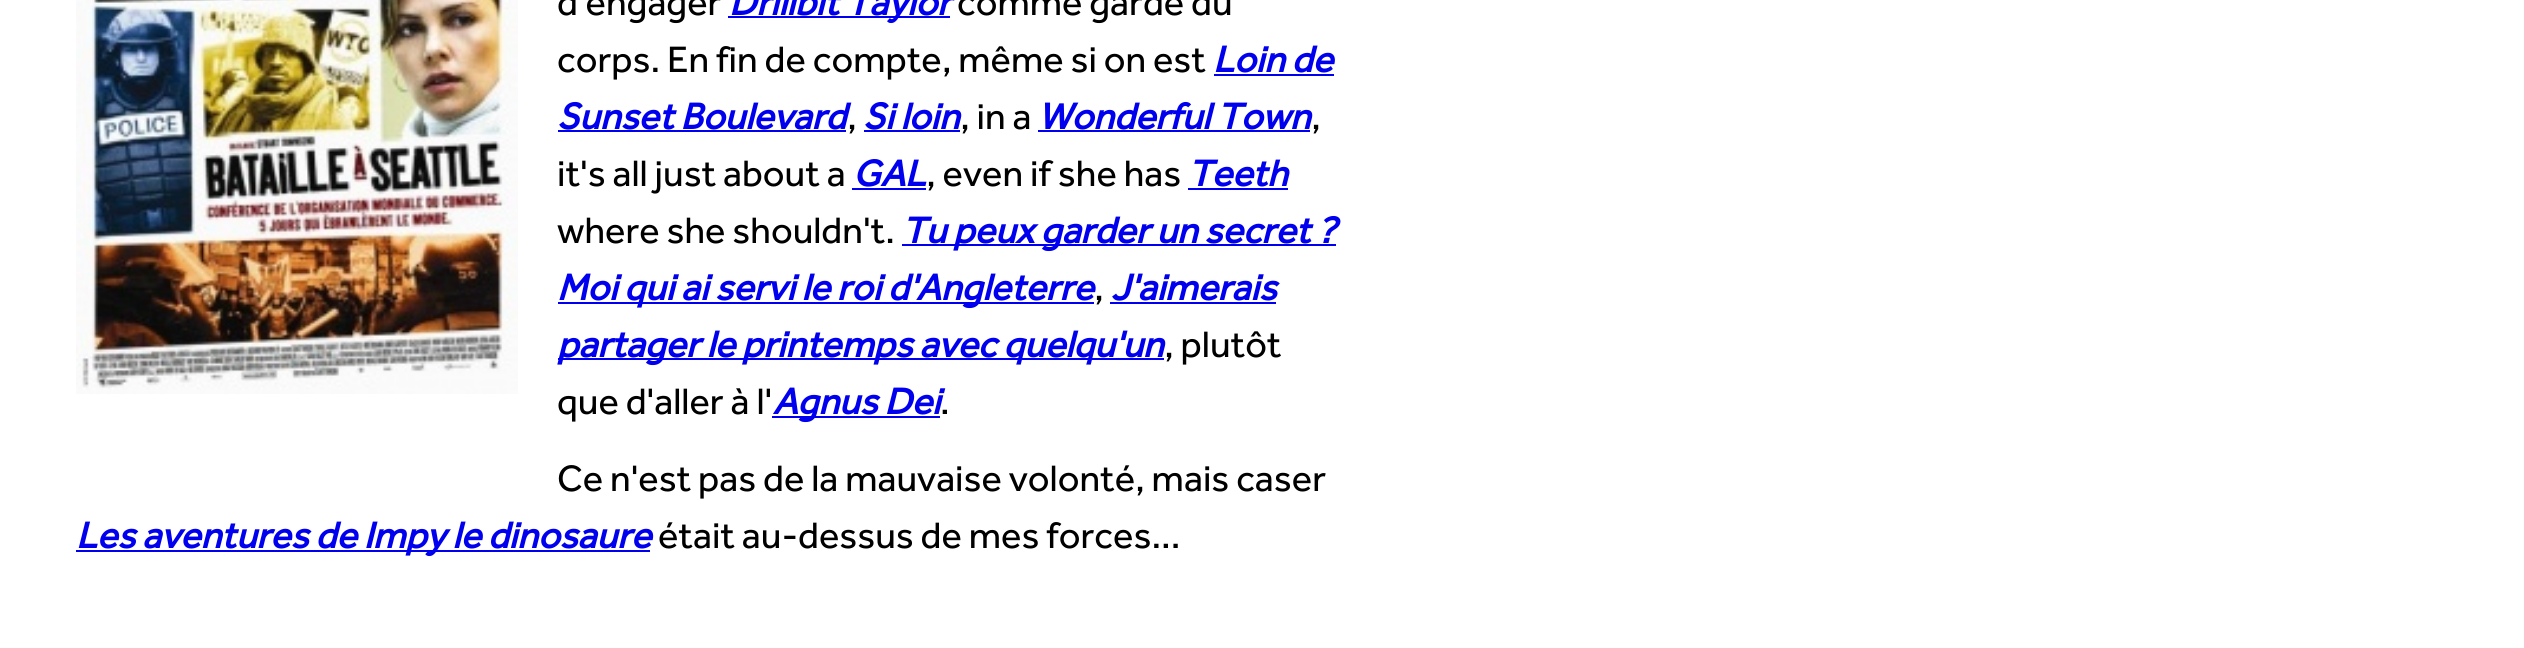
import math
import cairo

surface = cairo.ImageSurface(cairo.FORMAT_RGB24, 2524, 648)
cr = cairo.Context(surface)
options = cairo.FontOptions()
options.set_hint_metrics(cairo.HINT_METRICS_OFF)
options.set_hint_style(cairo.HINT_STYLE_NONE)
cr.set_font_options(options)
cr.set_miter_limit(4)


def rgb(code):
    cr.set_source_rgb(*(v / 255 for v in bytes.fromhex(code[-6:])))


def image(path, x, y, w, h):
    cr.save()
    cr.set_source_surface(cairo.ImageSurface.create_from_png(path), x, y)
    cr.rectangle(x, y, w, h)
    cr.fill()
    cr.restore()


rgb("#ffffff")
cr.paint()
image("img/1.png", 76, 0, 442, 394)
for x, y, w, h, color in [
    (728, 16, 222, 2, "#0000ee"),
    (1214, 74, 120, 2, "#0000ee"),
    (558, 130, 288, 2, "#0000ee"),
    (864, 130, 96, 2, "#0000ee"),
    (1038, 130, 272, 2, "#0000ee"),
    (852, 188, 74, 2, "#0000ee"),
    (1188, 188, 100, 2, "#0000ee"),
    (902, 244, 434, 2, "#0000ee"),
    (558, 302, 536, 2, "#0000ee"),
    (1110, 302, 166, 2, "#0000ee"),
    (558, 358, 606, 2, "#0000ee"),
    (772, 416, 168, 2, "#0000ee"),
    (76, 550, 574, 2, "#0000ee"),
]:
    rgb(color)
    cr.rectangle(x, y, w, h)
    cr.fill()
cr.select_font_face("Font")
cr.set_font_size(38)
rgb("#000000")
cr.move_to(557, 15)
cr.show_text("d'engager")
cr.select_font_face("Font", cairo.FONT_SLANT_ITALIC, cairo.FONT_WEIGHT_BOLD)
rgb("#0000ee")
cr.move_to(729, 15)
cr.show_text("Drillbit Taylor")
cr.select_font_face("Font")
rgb("#000000")
cr.move_to(957, 15)
cr.show_text("comme garde du")
cr.move_to(557, 72)
cr.show_text("corps. En fin de compte, même si on est")
cr.select_font_face("Font", cairo.FONT_SLANT_ITALIC, cairo.FONT_WEIGHT_BOLD)
rgb("#0000ee")
cr.move_to(1213, 72)
cr.show_text("Loin de")
cr.move_to(557, 129)
cr.show_text("Sunset Boulevard")
cr.select_font_face("Font")
rgb("#000000")
cr.move_to(847, 129)
cr.show_text(",")
cr.select_font_face("Font", cairo.FONT_SLANT_ITALIC, cairo.FONT_WEIGHT_BOLD)
rgb("#0000ee")
cr.move_to(863, 129)
cr.show_text("Si loin")
cr.select_font_face("Font")
rgb("#000000")
cr.move_to(960, 129)
cr.show_text(", in a")
cr.select_font_face("Font", cairo.FONT_SLANT_ITALIC, cairo.FONT_WEIGHT_BOLD)
rgb("#0000ee")
cr.move_to(1038, 129)
cr.show_text("Wonderful Town")
cr.select_font_face("Font")
rgb("#000000")
cr.move_to(1311, 129)
cr.show_text(",")
cr.move_to(557, 186)
cr.show_text("it's all just about a")
cr.select_font_face("Font", cairo.FONT_SLANT_ITALIC, cairo.FONT_WEIGHT_BOLD)
rgb("#0000ee")
cr.move_to(853, 186)
cr.show_text("GAL")
cr.select_font_face("Font")
rgb("#000000")
cr.move_to(926, 186)
cr.show_text(", even if she has")
cr.select_font_face("Font", cairo.FONT_SLANT_ITALIC, cairo.FONT_WEIGHT_BOLD)
rgb("#0000ee")
cr.move_to(1188, 186)
cr.show_text("Teeth")
cr.select_font_face("Font")
rgb("#000000")
cr.move_to(557, 243)
cr.show_text("where she shouldn't.")
cr.select_font_face("Font", cairo.FONT_SLANT_ITALIC, cairo.FONT_WEIGHT_BOLD)
rgb("#0000ee")
cr.move_to(902, 243)
cr.show_text("Tu peux garder un secret ?")
cr.move_to(557, 300)
cr.show_text("Moi qui ai servi le roi d'Angleterre")
cr.select_font_face("Font")
rgb("#000000")
cr.move_to(1094, 300)
cr.show_text(",")
cr.select_font_face("Font", cairo.FONT_SLANT_ITALIC, cairo.FONT_WEIGHT_BOLD)
rgb("#0000ee")
cr.move_to(1111, 300)
cr.show_text("J'aimerais")
cr.move_to(557, 357)
cr.show_text("partager le printemps avec quelqu'un")
cr.select_font_face("Font")
rgb("#000000")
cr.move_to(1164, 357)
cr.show_text(", plutôt")
cr.move_to(557, 414)
cr.show_text("que d'aller à l'")
cr.select_font_face("Font", cairo.FONT_SLANT_ITALIC, cairo.FONT_WEIGHT_BOLD)
rgb("#0000ee")
cr.move_to(773, 414)
cr.show_text("Agnus Dei")
cr.select_font_face("Font")
rgb("#000000")
cr.move_to(940, 414)
cr.show_text(".")
cr.move_to(557, 491)
cr.show_text("Ce n'est pas de la mauvaise volonté, mais caser")
cr.select_font_face("Font", cairo.FONT_SLANT_ITALIC, cairo.FONT_WEIGHT_BOLD)
rgb("#0000ee")
cr.move_to(76, 548)
cr.show_text("Les aventures de Impy le dinosaure")
cr.select_font_face("Font")
rgb("#000000")
cr.move_to(658, 548)
cr.show_text("était au-dessus de mes forces...")
surface.write_to_png("page.png")
